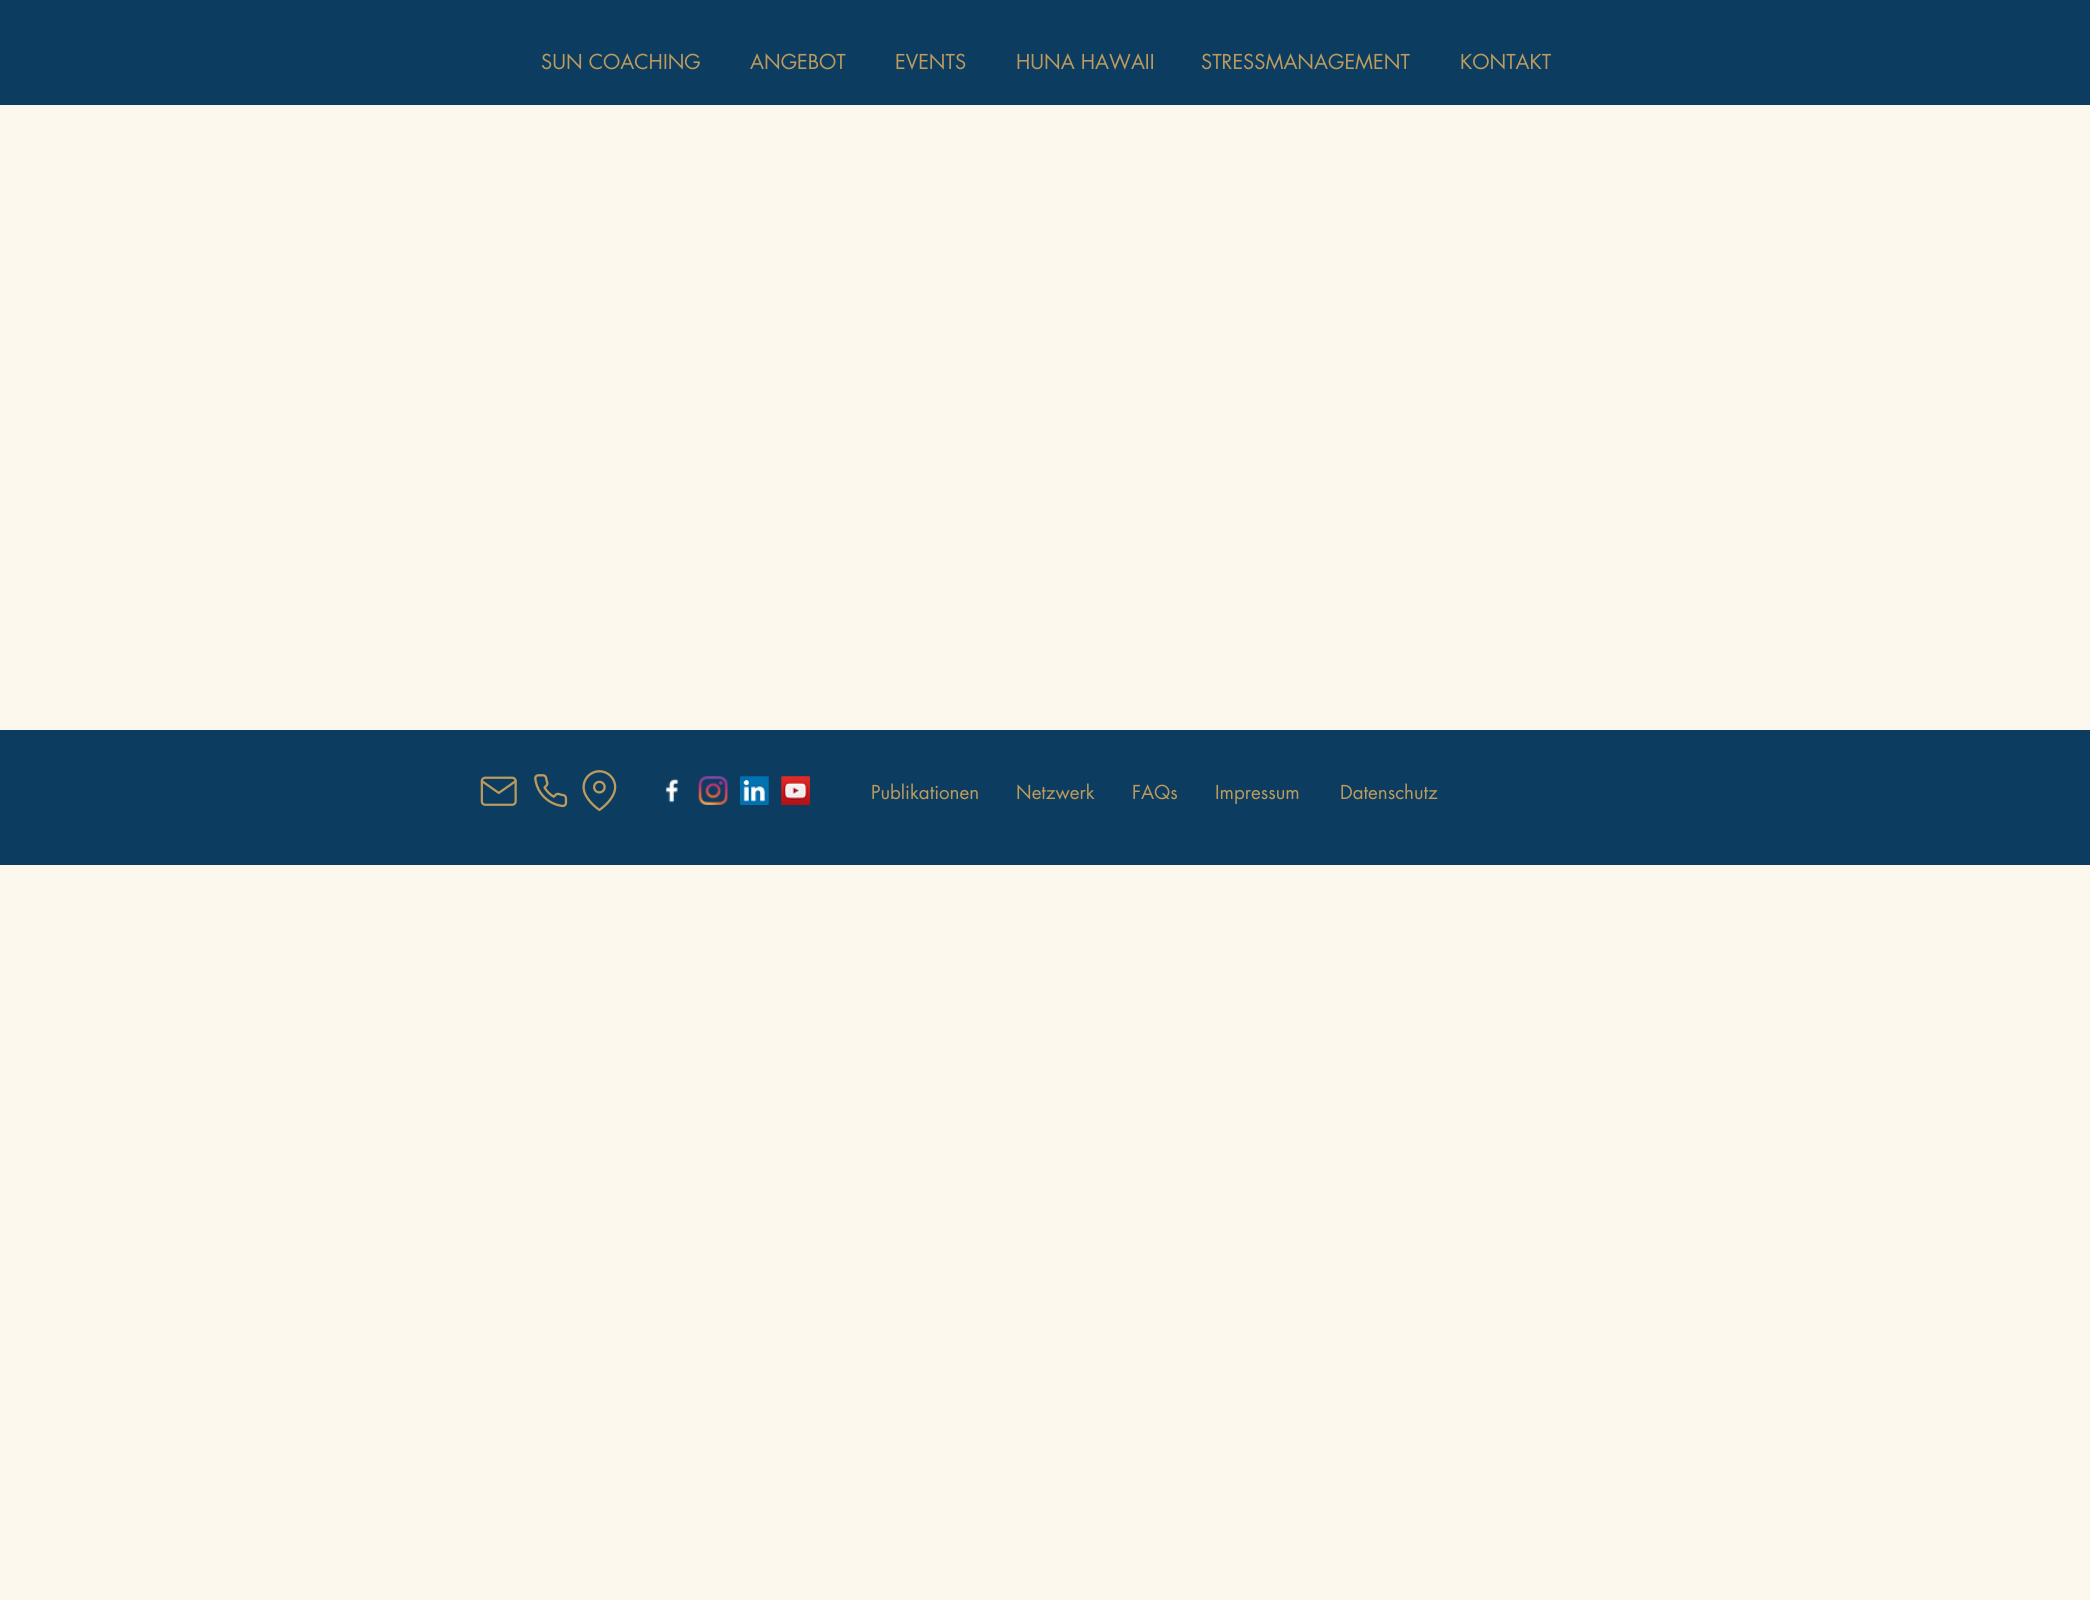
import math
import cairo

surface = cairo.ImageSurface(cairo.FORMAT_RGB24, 2090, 1600)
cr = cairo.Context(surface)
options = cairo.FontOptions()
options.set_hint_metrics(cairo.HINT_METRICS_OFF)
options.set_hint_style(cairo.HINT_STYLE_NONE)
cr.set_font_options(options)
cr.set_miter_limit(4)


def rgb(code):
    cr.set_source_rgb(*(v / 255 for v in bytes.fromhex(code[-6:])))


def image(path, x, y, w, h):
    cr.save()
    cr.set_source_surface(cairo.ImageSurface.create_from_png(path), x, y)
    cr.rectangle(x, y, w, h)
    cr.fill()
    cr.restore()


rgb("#fcf8ed")
cr.paint()
rgb("#0c3c60")
cr.rectangle(0, 0, 2090, 105)
cr.fill()
cr.rectangle(0, 730, 2090, 135)
cr.fill()
image("img/1.png", 480, 776, 37, 30)
image("img/2.png", 534, 774, 34, 34)
image("img/3.png", 582, 770, 35, 42)
image("img/4.png", 665, 778, 14, 25)
image("img/5.png", 698, 776, 30, 29)
image("img/6.png", 740, 776, 29, 29)
image("img/7.png", 781, 776, 29, 29)
cr.select_font_face("futura")
cr.set_font_size(20)
rgb("#bc9b5d")
for x, y, s in [
    (541, 69, "SUN COACHING"),
    (750, 69, "ANGEBOT"),
    (895, 69, "EVENTS"),
    (1016, 69, "HUNA HAWAII"),
    (1201, 69, "STRESSMANAGEMENT"),
    (1460, 69, "KONTAKT"),
]:
    cr.move_to(x, y)
    cr.show_text(s)
cr.set_font_size(18.75)
for x, y, s in [
    (871, 799, "Publikationen"),
    (1016, 799, "Netzwerk"),
    (1340, 799, "Datenschutz"),
    (1132, 799, "FAQs"),
    (1215, 799, "Impressum"),
]:
    cr.move_to(x, y)
    cr.show_text(s)
surface.write_to_png("page.png")
